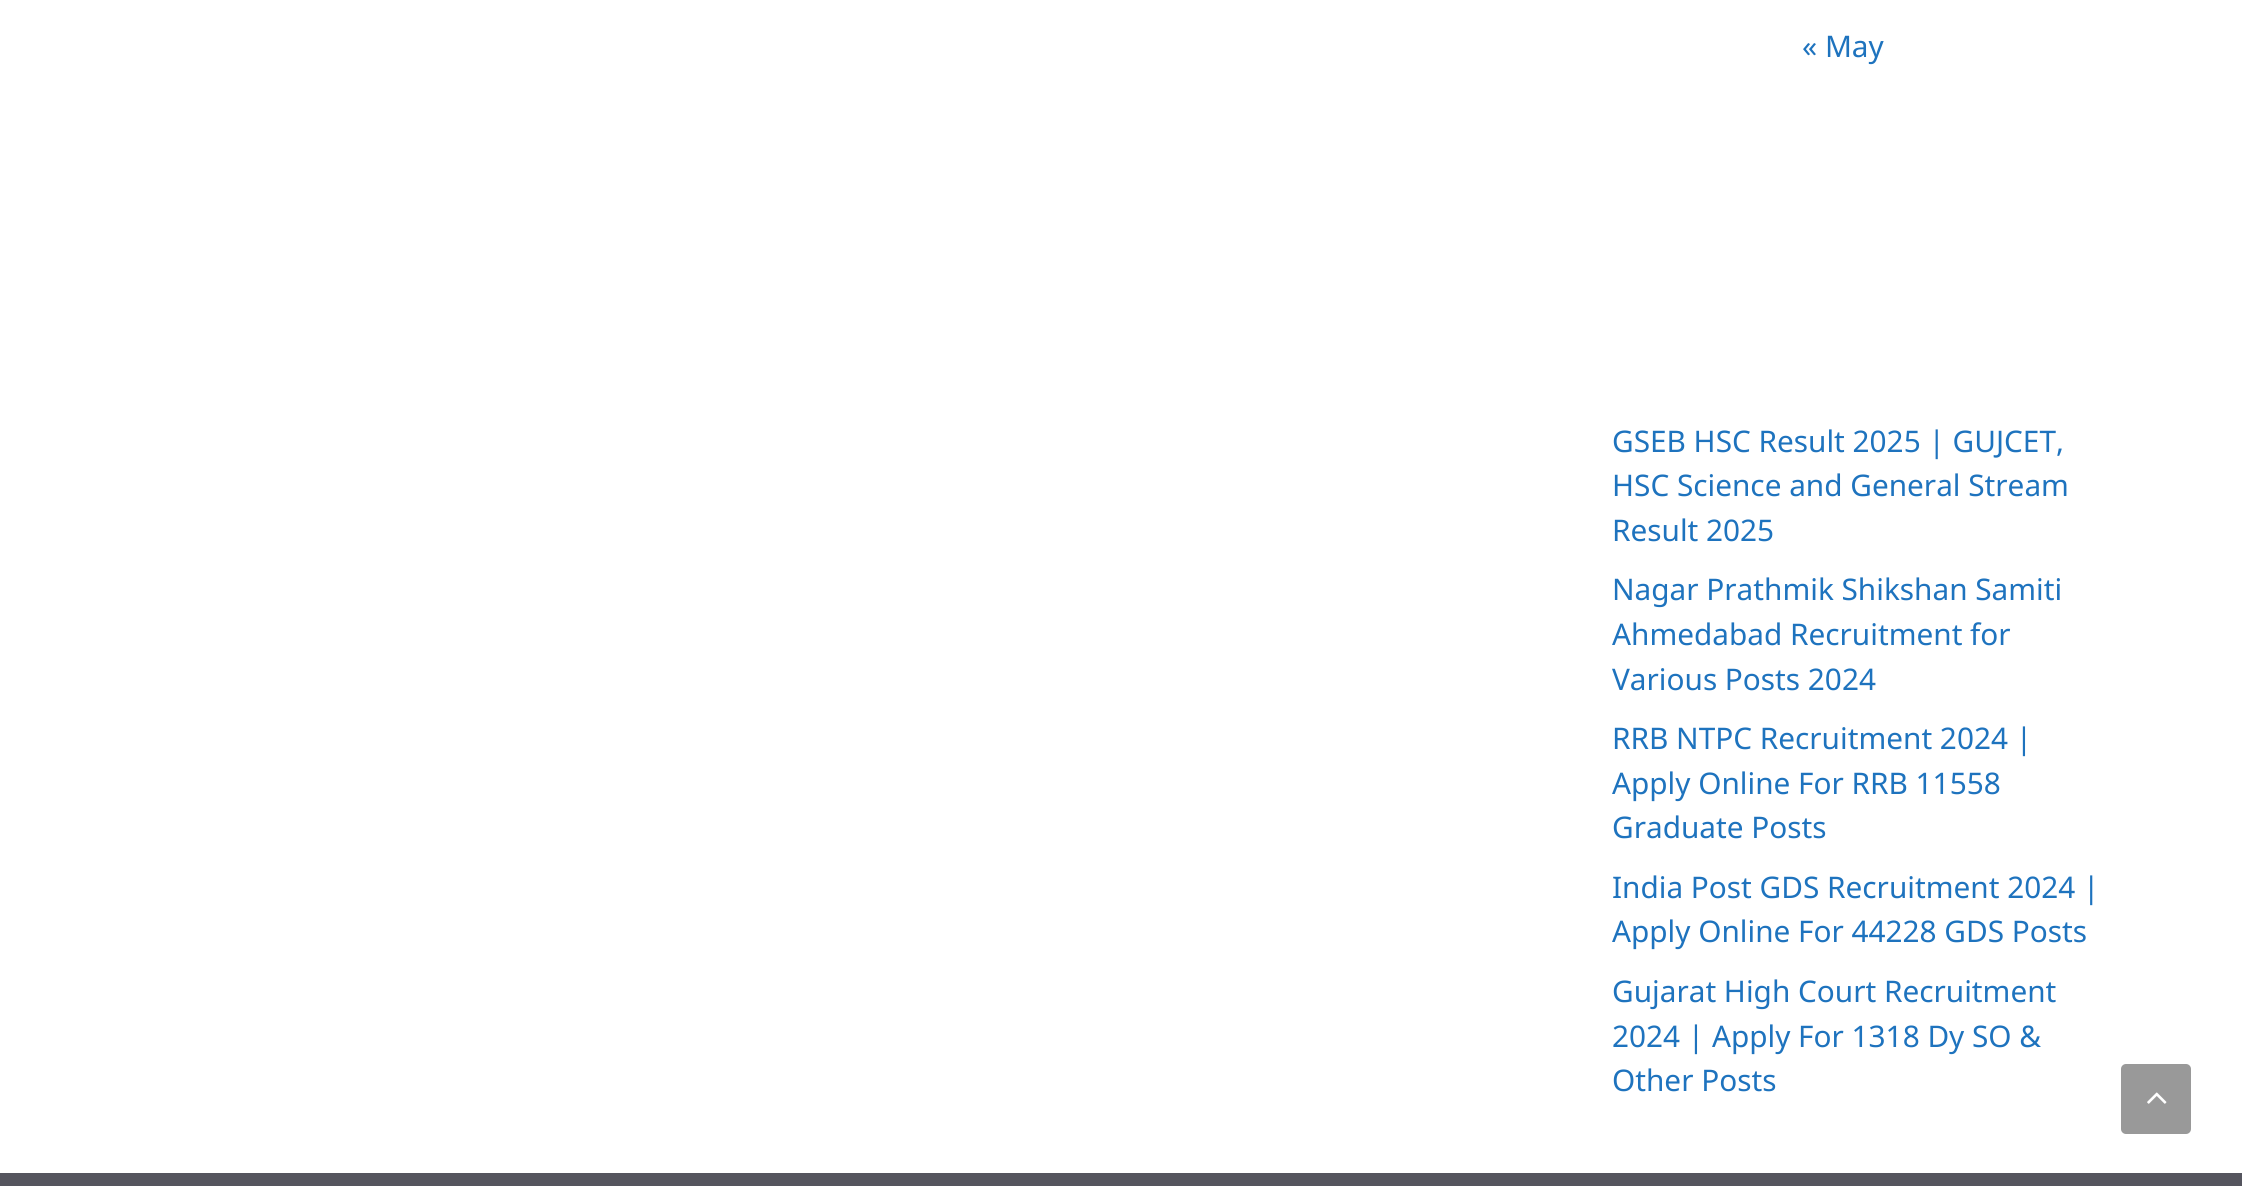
import math
import cairo

surface = cairo.ImageSurface(cairo.FORMAT_RGB24, 2242, 1186)
cr = cairo.Context(surface)
options = cairo.FontOptions()
options.set_hint_metrics(cairo.HINT_METRICS_OFF)
options.set_hint_style(cairo.HINT_STYLE_NONE)
cr.set_font_options(options)
cr.set_miter_limit(4)


def rgb(code):
    cr.set_source_rgb(*(v / 255 for v in bytes.fromhex(code[-6:])))


def rrect(x, y, w, h, r):
    cr.new_sub_path()
    for i, (u, v) in enumerate([(x + w - r, y + h - r), (x + r, y + h - r), (x + r, y + r), (x + w - r, y + r)]):
        cr.arc(u, v, r, i * math.pi / 2, (i + 1) * math.pi / 2)
    cr.close_path()


def image(path, x, y, w, h):
    cr.save()
    cr.set_source_surface(cairo.ImageSurface.create_from_png(path), x, y)
    cr.rectangle(x, y, w, h)
    cr.fill()
    cr.restore()


rgb("#ffffff")
cr.paint()
rgb("#999999")
rrect(2121, 1064, 70, 70, 5)
cr.fill()
image("img/1.png", 2147, 1092, 20, 12)
rgb("#55555e")
cr.rectangle(0, 1173, 2242, 13)
cr.fill()
cr.select_font_face("Noto Sans")
cr.set_font_size(29.75)
rgb("#1e73be")
for x, y, s in [
    (1802, 57, "« May"),
    (1612, 452, "GSEB HSC Result 2025 | GUJCET,"),
    (1612, 496, "HSC Science and General Stream"),
    (1612, 541, "Result 2025"),
    (1612, 600, "Nagar Prathmik Shikshan Samiti"),
    (1612, 645, "Ahmedabad Recruitment for"),
    (1612, 690, "Various Posts 2024"),
    (1612, 749, "RRB NTPC Recruitment 2024 |"),
    (1612, 794, "Apply Online For RRB 11558"),
    (1612, 838, "Graduate Posts"),
    (1612, 898, "India Post GDS Recruitment 2024 |"),
    (1612, 942, "Apply Online For 44228 GDS Posts"),
    (1612, 1002, "Gujarat High Court Recruitment"),
    (1612, 1047, "2024 | Apply For 1318 Dy SO &"),
    (1612, 1091, "Other Posts"),
]:
    cr.move_to(x, y)
    cr.show_text(s)
surface.write_to_png("page.png")
